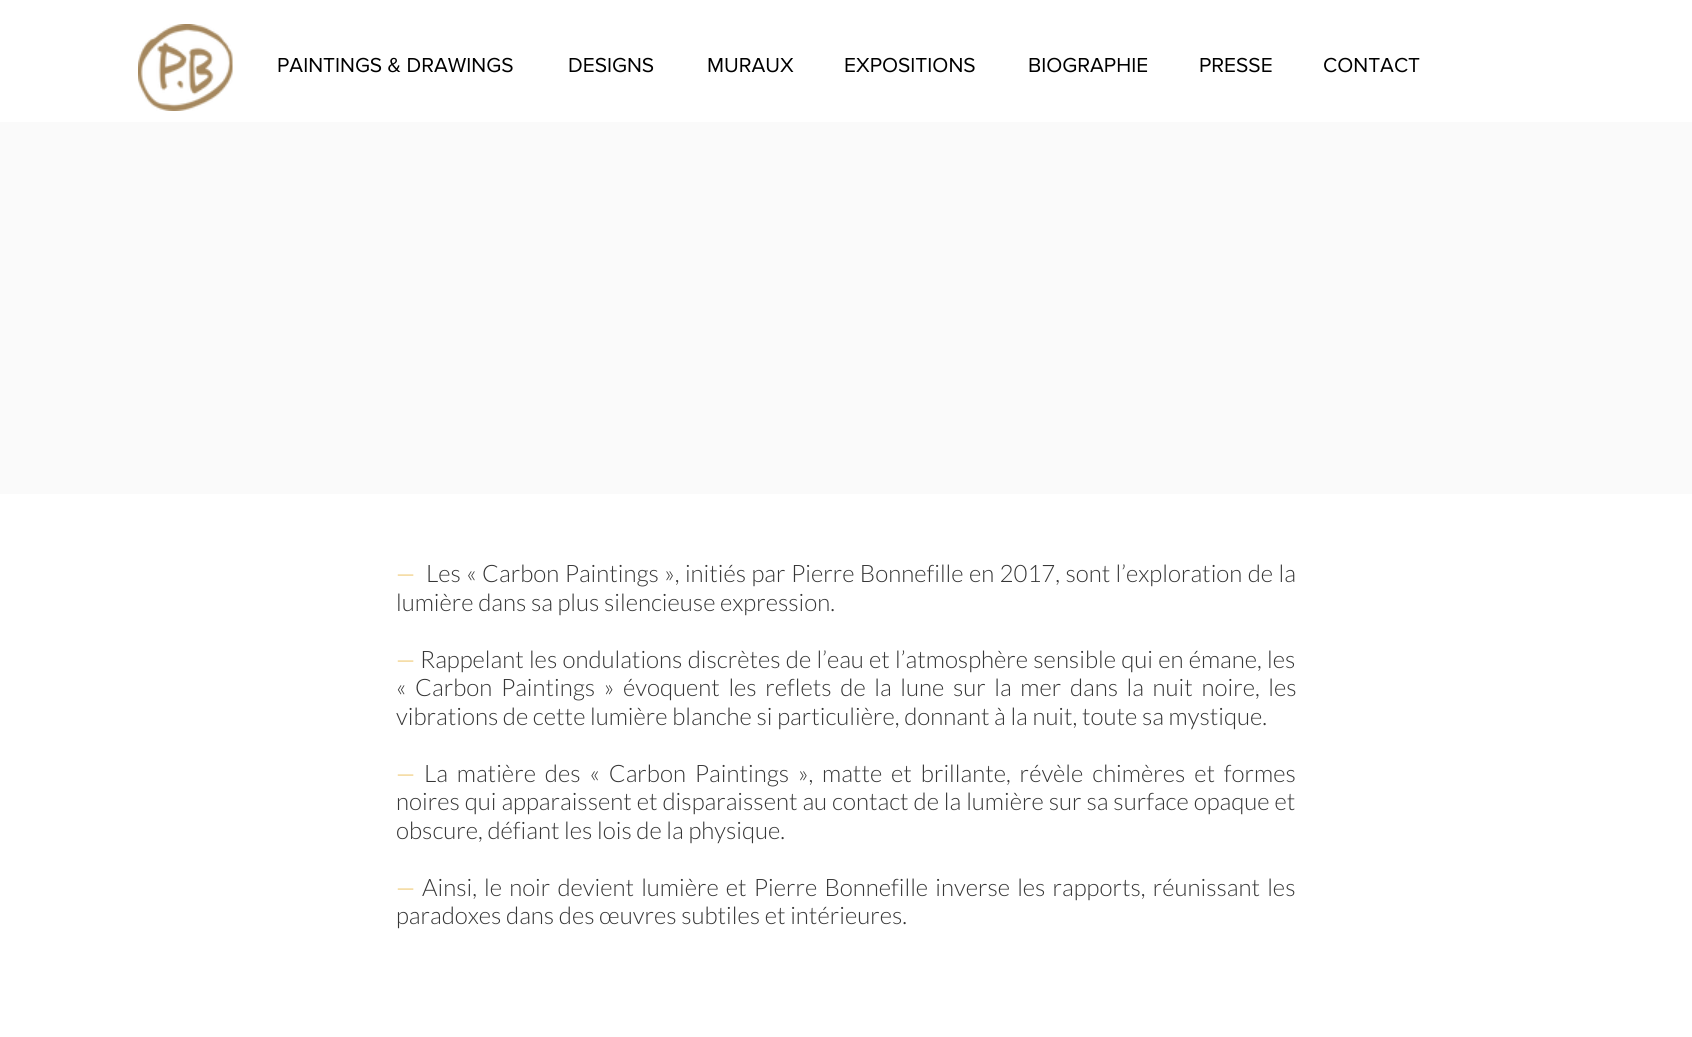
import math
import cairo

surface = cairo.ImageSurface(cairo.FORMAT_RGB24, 1692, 1037)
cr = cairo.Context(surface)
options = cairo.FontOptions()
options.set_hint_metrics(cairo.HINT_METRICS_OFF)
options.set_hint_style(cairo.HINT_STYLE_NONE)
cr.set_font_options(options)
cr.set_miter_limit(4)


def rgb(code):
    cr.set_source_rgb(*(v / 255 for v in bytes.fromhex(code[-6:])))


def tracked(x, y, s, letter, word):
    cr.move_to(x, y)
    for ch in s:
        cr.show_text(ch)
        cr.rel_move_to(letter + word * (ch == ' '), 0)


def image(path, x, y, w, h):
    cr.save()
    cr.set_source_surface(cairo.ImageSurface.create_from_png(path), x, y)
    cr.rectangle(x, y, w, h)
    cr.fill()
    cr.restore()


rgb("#ffffff")
cr.paint()
image("img/1.png", 138, 24, 95, 87)
rgb("#fafafa")
cr.rectangle(0, 122, 1692, 372)
cr.fill()
cr.select_font_face("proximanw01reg")
cr.set_font_size(21)
rgb("#000000")
for x, y, s in [
    (277, 72, "PAINTINGS & DRAWINGS"),
    (568, 72, "DESIGNS"),
    (707, 72, "MURAUX"),
    (844, 72, "EXPOSITIONS"),
    (1028, 72, "BIOGRAPHIE"),
    (1199, 72, "PRESSE"),
    (1323, 72, "CONTACT"),
]:
    cr.move_to(x, y)
    cr.show_text(s)
cr.select_font_face("Lato Light")
cr.set_font_size(24)
rgb("#ebba4d")
cr.move_to(396, 582)
cr.show_text("—")
rgb("#363636")
tracked(426, 582, "Les « Carbon Paintings », initiés par Pierre Bonnefille en 2017, sont l’exploration de la", 0, 0.75)
cr.move_to(396, 611)
cr.show_text("lumière dans sa plus silencieuse expression.")
rgb("#ebba4d")
cr.move_to(396, 668)
cr.show_text("—")
rgb("#363636")
tracked(420, 668, "Rappelant les ondulations discrètes de l’eau et l’atmosphère sensible qui en émane, les", 0, 0.6)
tracked(396, 696, "« Carbon Paintings » évoquent les reflets de la lune sur la mer dans la nuit noire, les", 0, 4)
cr.move_to(396, 725)
cr.show_text("vibrations de cette lumière blanche si particulière, donnant à la nuit, toute sa mystique.")
rgb("#ebba4d")
cr.move_to(396, 782)
cr.show_text("—")
rgb("#363636")
tracked(424, 782, "La matière des « Carbon Paintings », matte et brillante, révèle chimères et formes", 0, 4.25)
tracked(396, 810, "noires qui apparaissent et disparaissent au contact de la lumière sur sa surface opaque et", 0, 0.3)
cr.move_to(396, 839)
cr.show_text("obscure, défiant les lois de la physique.")
rgb("#ebba4d")
cr.move_to(396, 896)
cr.show_text("—")
rgb("#363636")
tracked(422, 896, "Ainsi, le noir devient lumière et Pierre Bonnefille inverse les rapports, réunissant les", 0, 2.5)
cr.move_to(396, 924)
cr.show_text("paradoxes dans des œuvres subtiles et intérieures.")
surface.write_to_png("page.png")
